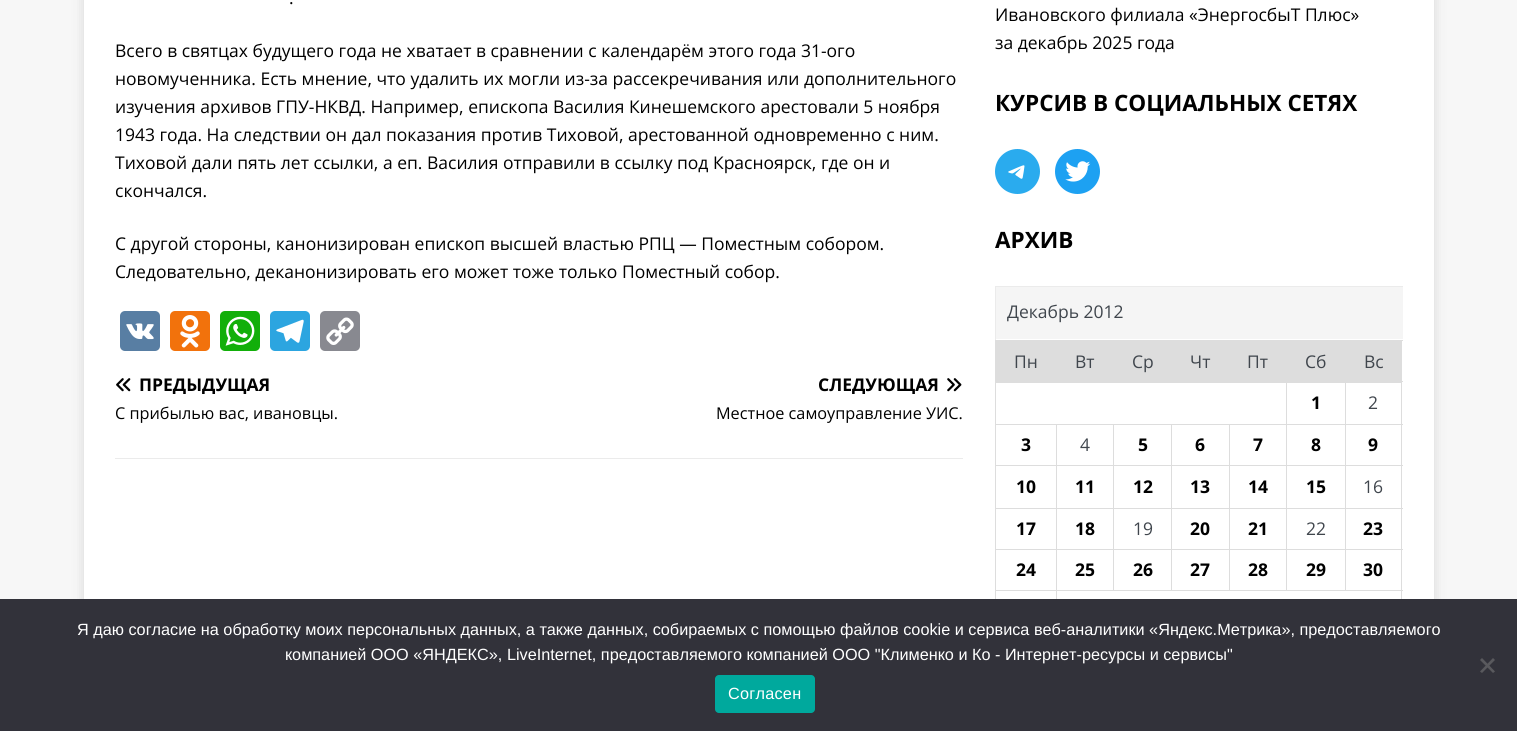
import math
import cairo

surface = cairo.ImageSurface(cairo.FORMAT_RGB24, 1517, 731)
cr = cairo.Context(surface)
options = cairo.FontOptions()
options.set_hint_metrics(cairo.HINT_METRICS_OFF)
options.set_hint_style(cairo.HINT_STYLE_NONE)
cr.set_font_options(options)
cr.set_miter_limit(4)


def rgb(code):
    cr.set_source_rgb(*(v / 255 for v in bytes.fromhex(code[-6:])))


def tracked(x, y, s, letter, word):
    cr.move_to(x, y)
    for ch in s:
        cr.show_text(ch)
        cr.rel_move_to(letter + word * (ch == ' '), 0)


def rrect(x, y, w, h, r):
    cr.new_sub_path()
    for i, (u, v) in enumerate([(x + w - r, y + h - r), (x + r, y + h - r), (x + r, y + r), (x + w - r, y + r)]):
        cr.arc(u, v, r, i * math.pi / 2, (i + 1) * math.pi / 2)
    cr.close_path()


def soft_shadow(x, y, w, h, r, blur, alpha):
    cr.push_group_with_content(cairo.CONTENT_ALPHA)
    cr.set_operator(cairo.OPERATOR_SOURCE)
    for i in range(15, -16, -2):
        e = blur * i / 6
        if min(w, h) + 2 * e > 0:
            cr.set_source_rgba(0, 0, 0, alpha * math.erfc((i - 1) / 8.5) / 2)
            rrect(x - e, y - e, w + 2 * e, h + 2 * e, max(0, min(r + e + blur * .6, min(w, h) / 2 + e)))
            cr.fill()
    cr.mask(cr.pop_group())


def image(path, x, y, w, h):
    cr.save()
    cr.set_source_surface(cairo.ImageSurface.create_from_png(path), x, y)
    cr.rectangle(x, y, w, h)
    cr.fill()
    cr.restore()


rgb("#f7f7f7")
cr.paint()
rgb("#323232")
soft_shadow(84, -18, 1350, 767, 0, 6, 0.17)
rgb("#ffffff")
cr.rectangle(84, 0, 1350, 599)
cr.fill()
rgb("#587ea3")
rrect(120, 311, 40, 40, 5)
cr.fill()
image("img/1.png", 126, 323, 28, 17)
rgb("#f2720c")
rrect(170, 311, 40, 40, 5)
cr.fill()
image("img/2.png", 180, 315, 20, 33)
rgb("#12af0a")
rrect(220, 311, 40, 40, 5)
cr.fill()
image("img/3.png", 225, 316, 30, 30)
rgb("#2ca5e0")
rrect(270, 311, 40, 40, 5)
cr.fill()
image("img/4.png", 276, 319, 28, 24)
rgb("#888990")
rrect(320, 311, 40, 40, 5)
cr.fill()
image("img/5.png", 326, 317, 28, 28)
rgb("#ebebeb")
cr.rectangle(115, 458, 848, 1)
cr.fill()
image("img/6.png", 116, 378, 15, 14)
image("img/7.png", 947, 378, 15, 14)
rgb("#2aabee")
cr.arc(1017.5, 171.5, 22.5, 0, 2 * math.pi)
cr.fill()
image("img/8.png", 1008, 165, 17, 14)
rgb("#1da1f2")
cr.arc(1077.5, 171.5, 22.5, 0, 2 * math.pi)
cr.fill()
image("img/9.png", 1065, 161, 26, 21)
for x, y, w, h, color in [
    (995, 286, 408, 1, "#ebebeb"),
    (995, 286, 1, 54, "#ebebeb"),
    (996, 287, 407, 52, "#f5f5f5"),
    (996, 341, 405, 42, "#dddddd"),
    (995, 340, 408, 1, "#dddddd"),
    (1345, 424, 58, 1, "#dddddd"),
    (1345, 465, 58, 1, "#dddddd"),
    (1345, 508, 58, 1, "#dddddd"),
    (1345, 549, 58, 1, "#dddddd"),
    (1056, 590, 347, 1, "#dddddd"),
    (1345, 549, 1, 42, "#dddddd"),
    (1286, 549, 60, 1, "#dddddd"),
    (1345, 508, 1, 42, "#dddddd"),
    (1286, 508, 60, 1, "#dddddd"),
    (1345, 465, 1, 44, "#dddddd"),
    (1286, 465, 60, 1, "#dddddd"),
    (1345, 424, 1, 42, "#dddddd"),
    (1286, 424, 60, 1, "#dddddd"),
    (1286, 549, 1, 42, "#dddddd"),
    (1229, 549, 59, 1, "#dddddd"),
    (1286, 508, 1, 42, "#dddddd"),
    (1229, 508, 59, 1, "#dddddd"),
    (1286, 465, 1, 44, "#dddddd"),
    (1229, 465, 59, 1, "#dddddd"),
    (1286, 424, 1, 42, "#dddddd"),
    (1229, 424, 59, 1, "#dddddd"),
    (1229, 549, 1, 42, "#dddddd"),
    (1171, 549, 59, 1, "#dddddd"),
    (1229, 508, 1, 42, "#dddddd"),
    (1171, 508, 59, 1, "#dddddd"),
    (1229, 465, 1, 44, "#dddddd"),
    (1171, 465, 59, 1, "#dddddd"),
    (1229, 424, 1, 42, "#dddddd"),
    (1171, 424, 59, 1, "#dddddd"),
    (1171, 549, 1, 42, "#dddddd"),
    (1113, 549, 60, 1, "#dddddd"),
    (1171, 508, 1, 42, "#dddddd"),
    (1113, 508, 60, 1, "#dddddd"),
    (1171, 465, 1, 44, "#dddddd"),
    (1113, 465, 60, 1, "#dddddd"),
    (1171, 424, 1, 42, "#dddddd"),
    (1113, 424, 60, 1, "#dddddd"),
    (1113, 549, 1, 42, "#dddddd"),
    (1056, 549, 58, 1, "#dddddd"),
    (1113, 508, 1, 42, "#dddddd"),
    (1056, 508, 58, 1, "#dddddd"),
    (1113, 465, 1, 44, "#dddddd"),
    (1056, 465, 58, 1, "#dddddd"),
    (1113, 424, 1, 42, "#dddddd"),
    (1056, 424, 58, 1, "#dddddd"),
    (1056, 590, 1, 9, "#dddddd"),
    (995, 590, 63, 1, "#dddddd"),
    (1056, 549, 1, 42, "#dddddd"),
    (995, 549, 63, 1, "#dddddd"),
    (1056, 508, 1, 42, "#dddddd"),
    (995, 508, 63, 1, "#dddddd"),
    (1056, 465, 1, 44, "#dddddd"),
    (995, 465, 63, 1, "#dddddd"),
    (1056, 424, 1, 42, "#dddddd"),
    (995, 424, 63, 1, "#dddddd"),
    (995, 590, 1, 9, "#dddddd"),
    (995, 549, 1, 42, "#dddddd"),
    (995, 508, 1, 42, "#dddddd"),
    (995, 465, 1, 44, "#dddddd"),
    (995, 424, 1, 42, "#dddddd"),
    (995, 381, 1, 44, "#dddddd"),
    (995, 340, 1, 43, "#dddddd"),
    (1401, 381, 2, 1, "#dddddd"),
    (1401, 590, 1, 9, "#dddddd"),
    (1401, 549, 1, 42, "#dddddd"),
    (1401, 508, 1, 42, "#dddddd"),
    (1401, 465, 1, 44, "#dddddd"),
    (1401, 424, 1, 42, "#dddddd"),
    (1401, 381, 1, 44, "#dddddd"),
    (1401, 340, 1, 43, "#dddddd"),
    (1286, 381, 1, 44, "#dddddd"),
    (1345, 381, 1, 44, "#dddddd"),
    (0, 599, 1517, 132, "#32323a"),
]:
    rgb(color)
    cr.rectangle(x, y, w, h)
    cr.fill()
rgb("#59595d")
cr.new_path()
cr.move_to(1493, 658)
cr.line_to(1495, 660)
cr.line_to(1482, 673)
cr.line_to(1480, 671.5)
cr.close_path()
cr.fill()
cr.new_path()
cr.move_to(1480, 660)
cr.line_to(1482, 658)
cr.line_to(1495, 671.5)
cr.line_to(1493, 673)
cr.close_path()
cr.fill()
rgb("#00a99d")
rrect(715, 675, 100, 38, 4)
cr.fill()
cr.select_font_face("Open Sans")
cr.set_font_size(17.5)
rgb("#000000")
for x, y, s in [
    (289, 4, "."),
    (115, 57, "Всего в святцах будущего года не хватает в сравнении с календарём этого года 31-ого"),
    (115, 85, "новомученника. Есть мнение, что удалить их могли из-за рассекречивания или дополнительного"),
    (115, 113, "изучения архивов ГПУ-НКВД. Например, епископа Василия Кинешемского арестовали 5 ноября"),
    (115, 141, "1943 года. На следствии он дал показания против Тиховой, арестованной одновременно с ним."),
    (115, 169, "Тиховой дали пять лет ссылки, а еп. Василия отправили в ссылку под Красноярск, где он и"),
    (115, 197, "скончался."),
    (115, 250, "С другой стороны, канонизирован епископ высшей властью РПЦ — Поместным собором."),
    (115, 278, "Следовательно, деканонизировать его может тоже только Поместный собор."),
]:
    cr.move_to(x, y)
    cr.show_text(s)
cr.save()
cr.rectangle(115, 376, 414, 18)
cr.clip()
cr.select_font_face("Open Sans", cairo.FONT_SLANT_NORMAL, cairo.FONT_WEIGHT_BOLD)
cr.move_to(139, 391)
cr.show_text("ПРЕДЫДУЩАЯ")
cr.restore()
cr.set_font_size(16.25)
cr.move_to(115, 419)
cr.show_text("С прибылью вас, ивановцы.")
cr.save()
cr.rectangle(550, 376, 413, 18)
cr.clip()
cr.select_font_face("Open Sans", cairo.FONT_SLANT_NORMAL, cairo.FONT_WEIGHT_BOLD)
cr.set_font_size(17.5)
cr.move_to(818, 391)
cr.show_text("СЛЕДУЮЩАЯ")
cr.restore()
cr.move_to(716, 419)
cr.show_text("Местное самоуправление УИС.")
cr.set_font_size(17.5)
cr.move_to(995, 21)
cr.show_text("Ивановского филиала «ЭнергосбыТ Плюс»")
cr.move_to(995, 49)
cr.show_text("за декабрь 2025 года")
cr.select_font_face("Open Sans", cairo.FONT_SLANT_NORMAL, cairo.FONT_WEIGHT_BOLD)
cr.set_font_size(22.5)
cr.move_to(995, 111)
cr.show_text("КУРСИВ В СОЦИАЛЬНЫХ СЕТЯХ")
cr.move_to(995, 248)
cr.show_text("АРХИВ")
cr.select_font_face("Open Sans")
cr.set_font_size(17.5)
rgb("#40464d")
for x, y, s in [
    (1007, 318, "Декабрь 2012"),
    (1014, 368, "Пн"),
    (1075, 368, "Вт"),
    (1132, 368, "Ср"),
    (1190, 368, "Чт"),
    (1247, 368, "Пт"),
    (1305, 368, "Сб"),
    (1364, 368, "Вс"),
]:
    cr.move_to(x, y)
    cr.show_text(s)
cr.select_font_face("Open Sans", cairo.FONT_SLANT_NORMAL, cairo.FONT_WEIGHT_BOLD)
rgb("#000000")
cr.move_to(1311, 409)
cr.show_text("1")
cr.select_font_face("Open Sans")
rgb("#40464d")
cr.move_to(1368, 409)
cr.show_text("2")
cr.select_font_face("Open Sans", cairo.FONT_SLANT_NORMAL, cairo.FONT_WEIGHT_BOLD)
rgb("#000000")
cr.move_to(1021, 451)
cr.show_text("3")
cr.select_font_face("Open Sans")
rgb("#40464d")
cr.move_to(1080, 451)
cr.show_text("4")
cr.select_font_face("Open Sans", cairo.FONT_SLANT_NORMAL, cairo.FONT_WEIGHT_BOLD)
rgb("#000000")
for x, y, s in [
    (1138, 451, "5"),
    (1195, 451, "6"),
    (1253, 451, "7"),
    (1311, 451, "8"),
    (1368, 451, "9"),
    (1016, 493, "10"),
    (1075, 493, "11"),
    (1133, 493, "12"),
    (1190, 493, "13"),
    (1248, 493, "14"),
    (1306, 493, "15"),
]:
    cr.move_to(x, y)
    cr.show_text(s)
cr.select_font_face("Open Sans")
rgb("#40464d")
cr.move_to(1363, 493)
cr.show_text("16")
cr.select_font_face("Open Sans", cairo.FONT_SLANT_NORMAL, cairo.FONT_WEIGHT_BOLD)
rgb("#000000")
cr.move_to(1016, 535)
cr.show_text("17")
cr.move_to(1075, 535)
cr.show_text("18")
cr.select_font_face("Open Sans")
rgb("#40464d")
cr.move_to(1133, 535)
cr.show_text("19")
cr.select_font_face("Open Sans", cairo.FONT_SLANT_NORMAL, cairo.FONT_WEIGHT_BOLD)
rgb("#000000")
cr.move_to(1190, 535)
cr.show_text("20")
cr.move_to(1248, 535)
cr.show_text("21")
cr.select_font_face("Open Sans")
rgb("#40464d")
cr.move_to(1306, 535)
cr.show_text("22")
cr.select_font_face("Open Sans", cairo.FONT_SLANT_NORMAL, cairo.FONT_WEIGHT_BOLD)
rgb("#000000")
for x, y, s in [
    (1363, 535, "23"),
    (1016, 576, "24"),
    (1075, 576, "25"),
    (1133, 576, "26"),
    (1190, 576, "27"),
    (1248, 576, "28"),
    (1306, 576, "29"),
    (1363, 576, "30"),
]:
    cr.move_to(x, y)
    cr.show_text(s)
cr.select_font_face("Liberation Sans")
cr.set_font_size(16.25)
rgb("#ffffff")
cr.move_to(77, 635)
cr.show_text("Я даю согласие на обработку моих персональных данных, а также данных, собираемых с помощью файлов cookie и сервиса веб-аналитики «Яндекс.Метрика», предоставляемого")
cr.move_to(285, 660)
cr.show_text("компанией ООО «ЯНДЕКС», LiveInternet, предоставляемого компанией ООО \"Клименко и Ко - Интернет-ресурсы и сервисы\"")
tracked(728, 699, "Согласен", 0.25, 0)
surface.write_to_png("page.png")
